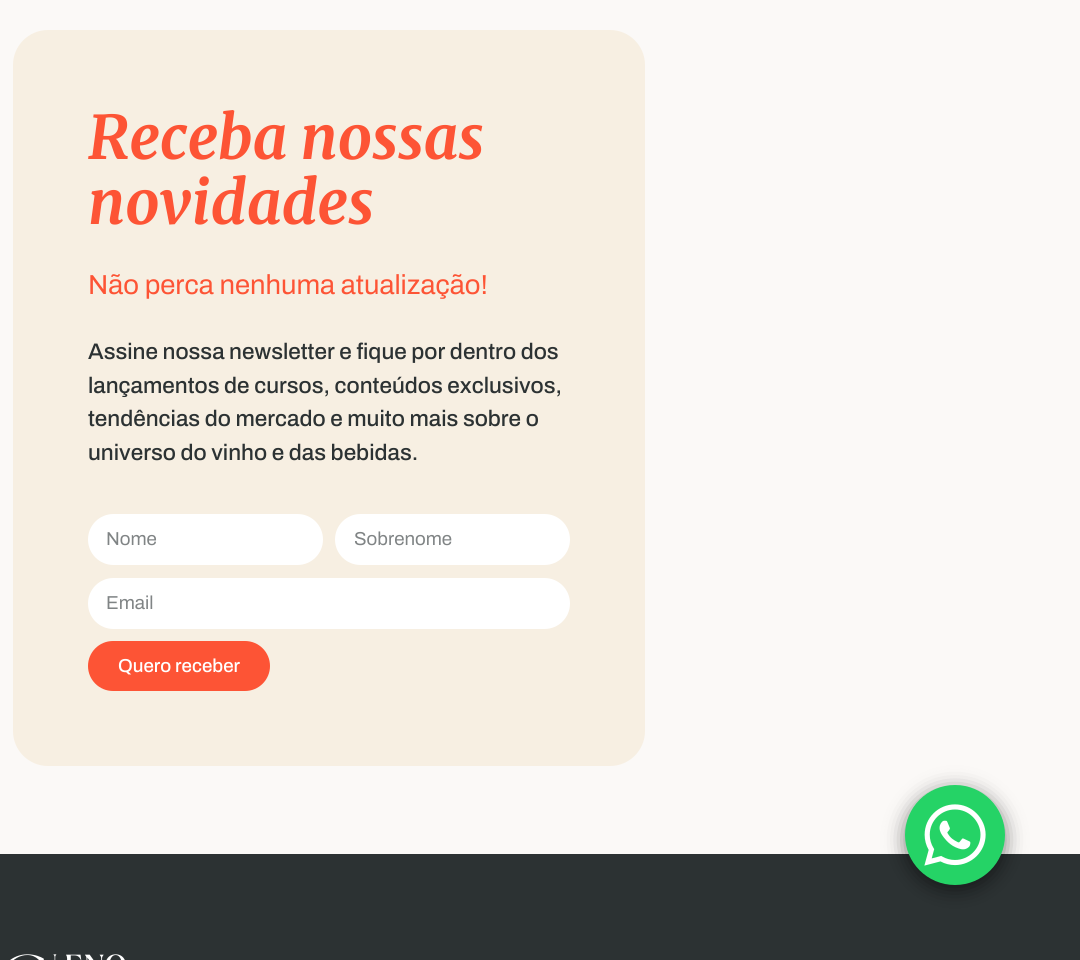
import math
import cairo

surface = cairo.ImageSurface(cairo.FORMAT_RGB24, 1080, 960)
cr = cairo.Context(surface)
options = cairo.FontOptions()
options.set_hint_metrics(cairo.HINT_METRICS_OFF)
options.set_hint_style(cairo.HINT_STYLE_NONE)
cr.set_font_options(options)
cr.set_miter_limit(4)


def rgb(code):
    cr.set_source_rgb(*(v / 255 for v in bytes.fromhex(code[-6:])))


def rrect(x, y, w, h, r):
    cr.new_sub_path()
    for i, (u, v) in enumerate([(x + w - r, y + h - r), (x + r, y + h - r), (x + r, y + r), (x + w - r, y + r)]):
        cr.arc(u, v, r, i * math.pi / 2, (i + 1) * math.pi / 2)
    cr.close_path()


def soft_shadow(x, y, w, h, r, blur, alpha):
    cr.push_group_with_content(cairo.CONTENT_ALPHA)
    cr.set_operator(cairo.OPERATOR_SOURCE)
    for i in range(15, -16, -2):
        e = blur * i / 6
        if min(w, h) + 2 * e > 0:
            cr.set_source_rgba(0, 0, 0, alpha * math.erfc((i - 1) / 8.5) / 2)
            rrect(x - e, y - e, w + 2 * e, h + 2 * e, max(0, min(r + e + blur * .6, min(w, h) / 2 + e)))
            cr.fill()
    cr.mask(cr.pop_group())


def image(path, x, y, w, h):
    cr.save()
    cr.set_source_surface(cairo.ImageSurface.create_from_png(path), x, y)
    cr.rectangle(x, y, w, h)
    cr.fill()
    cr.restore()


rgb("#fbf9f7")
cr.paint()
rgb("#f7efe2")
rrect(13, 30, 632, 736, 35)
cr.fill()
rgb("#ffffff")
rrect(88, 514, 235, 51, 25.5)
cr.fill()
rrect(335, 514, 235, 51, 25.5)
cr.fill()
rrect(88, 578, 482, 51, 25.5)
cr.fill()
rgb("#fd5435")
rrect(88, 641, 182, 50, 25)
cr.fill()
rgb("#2c3233")
cr.rectangle(0, 854, 1080, 106)
cr.fill()
rgb("#000000")
soft_shadow(905, 790, 100, 100, 50, 10, 0.5)
rgb("#25d366")
cr.arc(955, 835, 50, 0, 2 * math.pi)
cr.fill()
image("img/1.png", 924, 804, 62, 62)
image("img/2.png", 10, 954, 115, 6)
cr.select_font_face("Merriweather", cairo.FONT_SLANT_ITALIC, cairo.FONT_WEIGHT_BOLD)
cr.set_font_size(60)
rgb("#fd5435")
cr.move_to(88, 159)
cr.show_text("Receba nossas")
cr.move_to(88, 224)
cr.show_text("novidades")
cr.select_font_face("Archivo")
cr.set_font_size(27.5)
cr.move_to(88, 294)
cr.show_text("Não perca nenhuma atualização!")
cr.select_font_face("Archivo Medium")
cr.set_font_size(22.5)
rgb("#2c3233")
for x, y, s in [
    (88, 359, "Assine nossa newsletter e fique por dentro dos"),
    (88, 393, "lançamentos de cursos, conteúdos exclusivos,"),
    (88, 426, "tendências do mercado e muito mais sobre o"),
    (88, 460, "universo do vinho e das bebidas."),
]:
    cr.move_to(x, y)
    cr.show_text(s)
cr.select_font_face("Archivo")
cr.set_font_size(18.75)
rgb("#808485")
for x, y, s in [
    (106, 545, "Nome"),
    (354, 545, "Sobrenome"),
    (106, 609, "Email"),
]:
    cr.move_to(x, y)
    cr.show_text(s)
cr.select_font_face("Archivo Medium")
rgb("#ffffff")
cr.move_to(118, 672)
cr.show_text("Quero receber")
surface.write_to_png("page.png")
